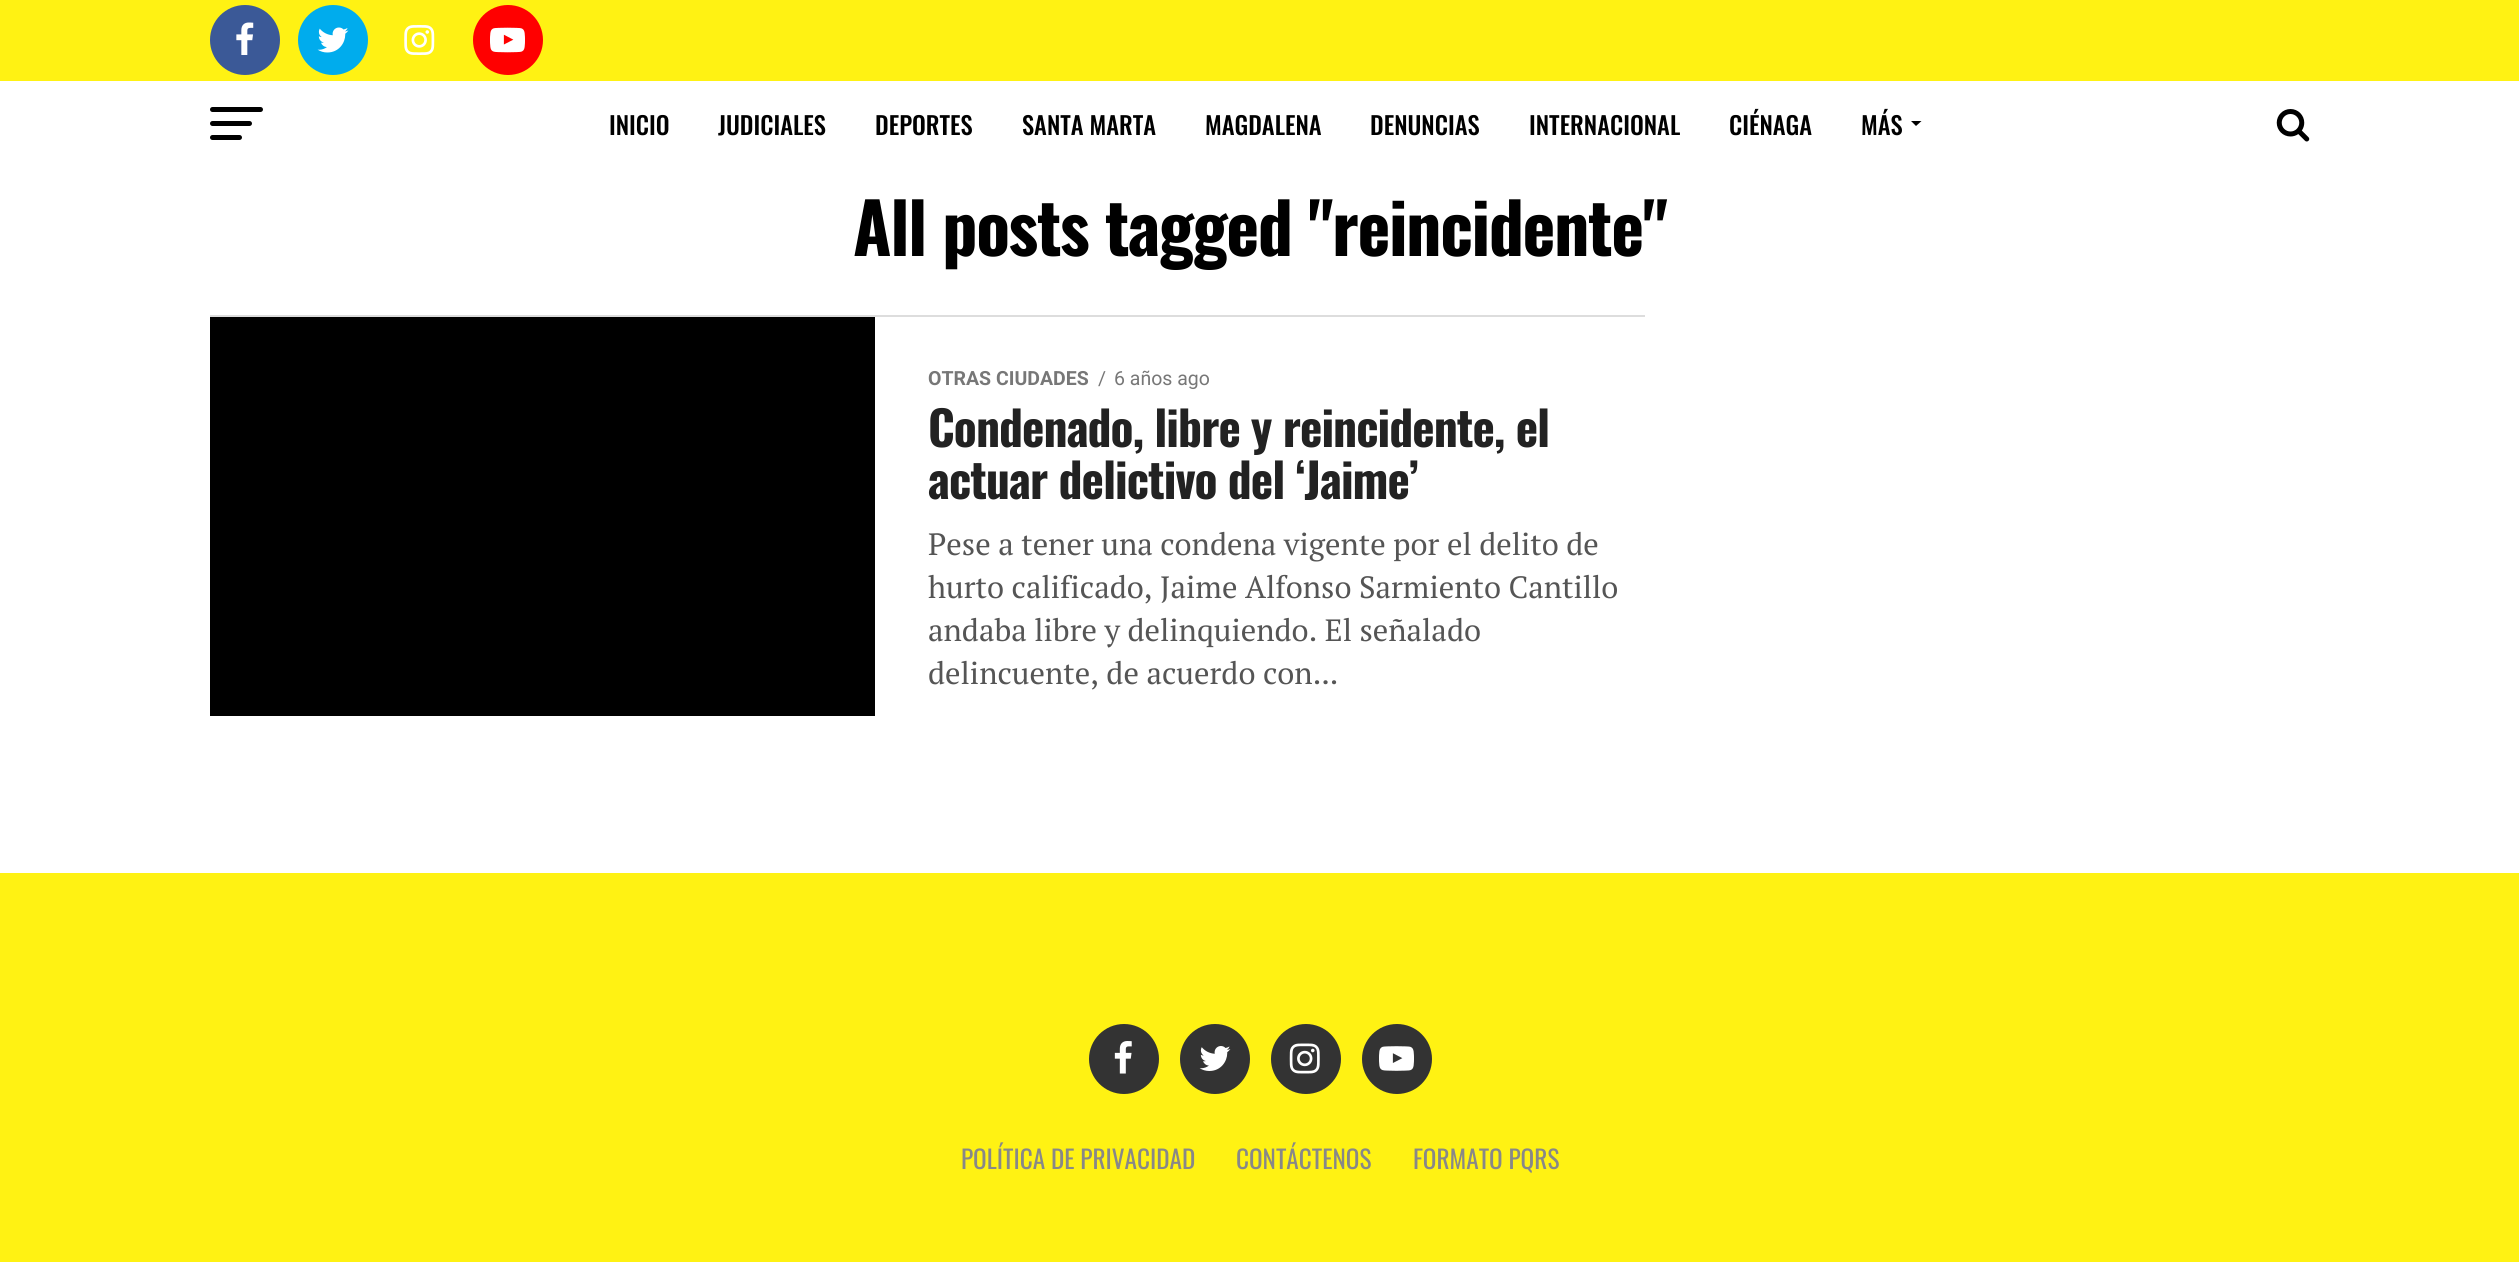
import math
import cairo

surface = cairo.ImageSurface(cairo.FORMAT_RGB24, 2519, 1262)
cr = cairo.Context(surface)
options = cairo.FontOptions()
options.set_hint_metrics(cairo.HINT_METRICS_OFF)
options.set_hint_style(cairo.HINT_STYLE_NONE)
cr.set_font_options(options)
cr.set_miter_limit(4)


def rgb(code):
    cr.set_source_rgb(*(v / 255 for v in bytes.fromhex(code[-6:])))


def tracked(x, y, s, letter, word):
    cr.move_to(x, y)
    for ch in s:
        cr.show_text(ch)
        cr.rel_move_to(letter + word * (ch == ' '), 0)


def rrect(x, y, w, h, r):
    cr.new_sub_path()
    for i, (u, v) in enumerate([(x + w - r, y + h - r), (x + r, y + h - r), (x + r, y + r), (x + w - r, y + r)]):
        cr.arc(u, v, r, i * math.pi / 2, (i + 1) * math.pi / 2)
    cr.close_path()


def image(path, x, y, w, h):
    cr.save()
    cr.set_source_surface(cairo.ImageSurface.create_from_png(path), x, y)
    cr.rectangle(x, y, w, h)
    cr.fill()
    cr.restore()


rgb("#ffffff")
cr.paint()
rgb("#fff213")
cr.rectangle(0, 0, 2519, 81)
cr.fill()
rgb("#3b5997")
cr.arc(245, 40, 35, 0, 2 * math.pi)
cr.fill()
image("img/1.png", 236, 22, 18, 33)
rgb("#00aced")
cr.arc(333, 40, 35, 0, 2 * math.pi)
cr.fill()
image("img/2.png", 317, 27, 32, 26)
image("img/3.png", 404, 25, 31, 30)
rgb("#ff0000")
cr.arc(508, 40, 35, 0, 2 * math.pi)
cr.fill()
image("img/4.png", 490, 27, 35, 26)
rgb("#000000")
rrect(210, 107, 53, 5, 2.5)
cr.fill()
rrect(210, 121, 42, 5, 2.5)
cr.fill()
rrect(210, 135, 32, 5, 2.5)
cr.fill()
cr.new_path()
cr.move_to(1911, 121)
cr.line_to(1921.5, 121)
cr.line_to(1916, 126)
cr.close_path()
cr.fill()
image("img/5.png", 2276, 109, 34, 33)
for x, y, w, h, color in [
    (210, 315, 1435, 2, "#dddddd"),
    (210, 317, 665, 399, "#000000"),
    (0, 873, 2519, 389, "#fff213"),
]:
    rgb(color)
    cr.rectangle(x, y, w, h)
    cr.fill()
rgb("#333333")
cr.arc(1124, 1059, 35, 0, 2 * math.pi)
cr.fill()
image("img/6.png", 1114, 1041, 18, 33)
cr.arc(1215, 1059, 35, 0, 2 * math.pi)
cr.fill()
image("img/7.png", 1199, 1046, 32, 25)
cr.arc(1306, 1059, 35, 0, 2 * math.pi)
cr.fill()
image("img/8.png", 1289, 1043, 31, 31)
cr.arc(1397, 1059, 35, 0, 2 * math.pi)
cr.fill()
image("img/9.png", 1379, 1046, 35, 25)
cr.select_font_face("Oswald Medium")
cr.set_font_size(24.5)
rgb("#000000")
for x, y, s in [
    (609, 135, "INICIO"),
    (718, 135, "JUDICIALES"),
    (875, 135, "DEPORTES"),
    (1022, 135, "SANTA MARTA"),
    (1205, 135, "MAGDALENA"),
    (1370, 135, "DENUNCIAS"),
    (1529, 135, "INTERNACIONAL"),
    (1729, 135, "CIÉNAGA"),
    (1861, 135, "MÁS"),
]:
    cr.move_to(x, y)
    cr.show_text(s)
cr.select_font_face("Oswald", cairo.FONT_SLANT_NORMAL, cairo.FONT_WEIGHT_BOLD)
cr.set_font_size(70)
tracked(853, 256, "All posts tagged \"reincidente\"", -1.4, 0)
cr.select_font_face("Roboto", cairo.FONT_SLANT_NORMAL, cairo.FONT_WEIGHT_BOLD)
cr.set_font_size(19.5)
rgb("#777777")
cr.move_to(928, 385)
cr.show_text("OTRAS CIUDADES")
cr.select_font_face("Roboto")
cr.move_to(1098, 385)
cr.show_text("/")
cr.move_to(1114, 385)
cr.show_text("6 años ago")
cr.select_font_face("Oswald", cairo.FONT_SLANT_NORMAL, cairo.FONT_WEIGHT_BOLD)
cr.set_font_size(47.6)
rgb("#222222")
tracked(928, 447, "Condenado, libre y reincidente, el", -0.95, 0)
tracked(928, 499, "actuar delictivo del ‘Jaime’", -0.95, 0)
cr.select_font_face("PT Serif")
cr.set_font_size(30.8)
rgb("#555555")
for x, y, s in [
    (928, 555, "Pese a tener una condena vigente por el delito de"),
    (928, 598, "hurto calificado, Jaime Alfonso Sarmiento Cantillo"),
    (928, 641, "andaba libre y delinquiendo. El señalado"),
    (928, 684, "delincuente, de acuerdo con..."),
]:
    cr.move_to(x, y)
    cr.show_text(s)
cr.select_font_face("Oswald")
cr.set_font_size(25.25)
rgb("#888888")
for x, y, s in [
    (961, 1169, "POLÍTICA DE PRIVACIDAD"),
    (1236, 1169, "CONTÁCTENOS"),
    (1413, 1169, "FORMATO PQRS"),
]:
    cr.move_to(x, y)
    cr.show_text(s)
surface.write_to_png("page.png")
